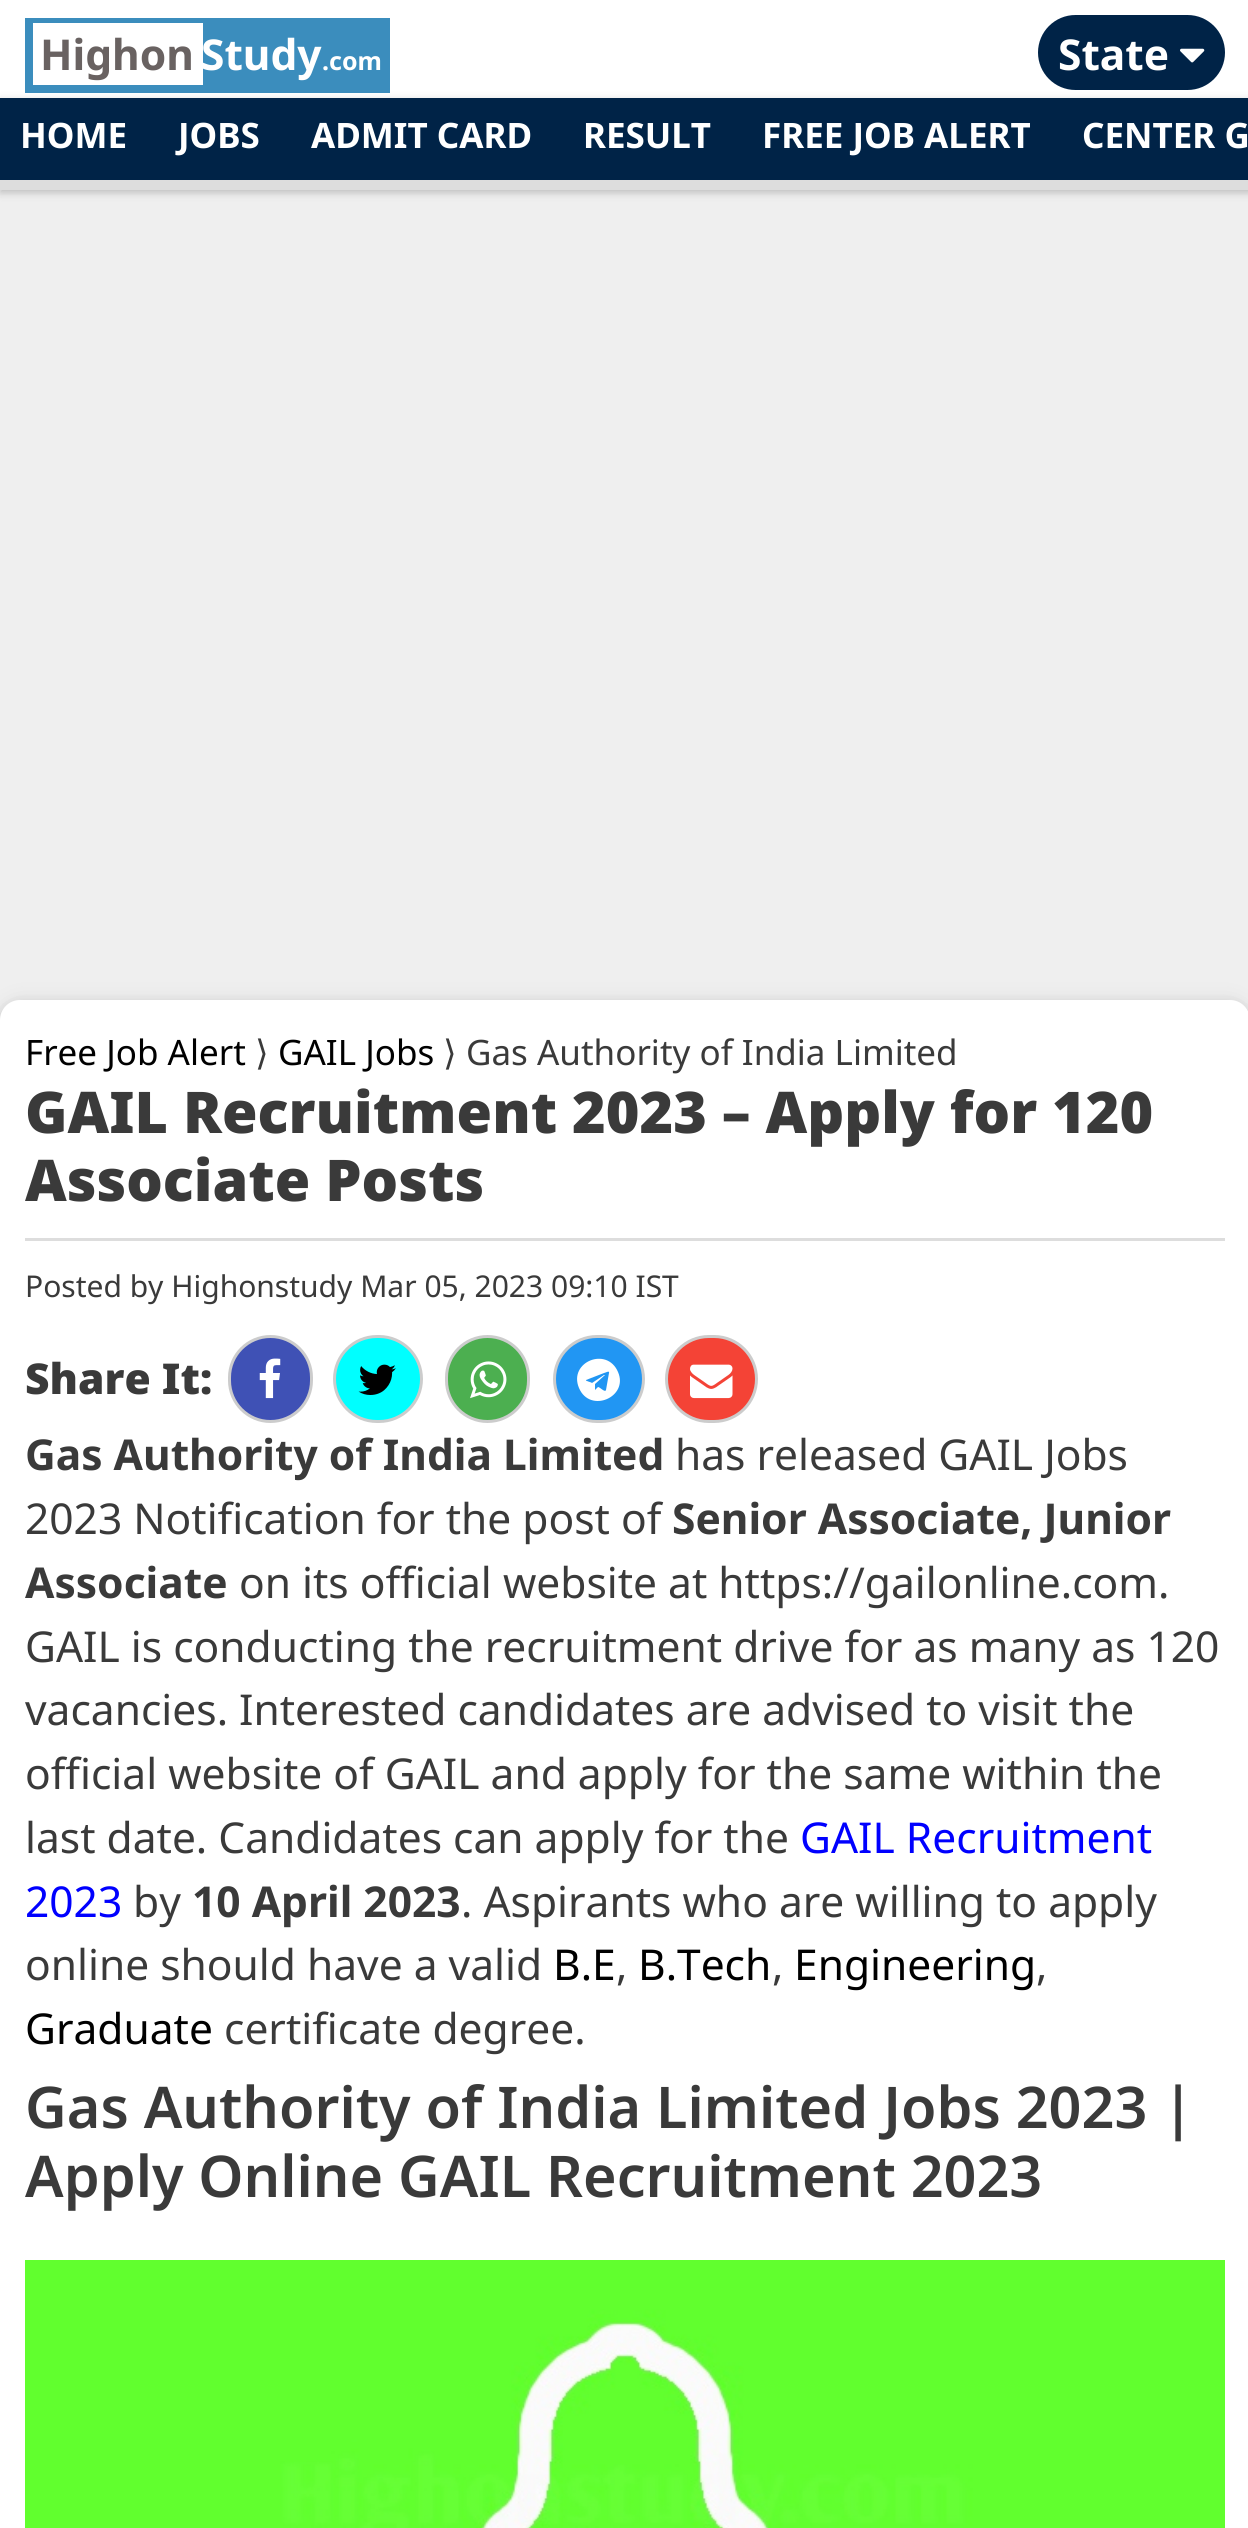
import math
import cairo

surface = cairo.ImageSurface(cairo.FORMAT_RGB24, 1248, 2528)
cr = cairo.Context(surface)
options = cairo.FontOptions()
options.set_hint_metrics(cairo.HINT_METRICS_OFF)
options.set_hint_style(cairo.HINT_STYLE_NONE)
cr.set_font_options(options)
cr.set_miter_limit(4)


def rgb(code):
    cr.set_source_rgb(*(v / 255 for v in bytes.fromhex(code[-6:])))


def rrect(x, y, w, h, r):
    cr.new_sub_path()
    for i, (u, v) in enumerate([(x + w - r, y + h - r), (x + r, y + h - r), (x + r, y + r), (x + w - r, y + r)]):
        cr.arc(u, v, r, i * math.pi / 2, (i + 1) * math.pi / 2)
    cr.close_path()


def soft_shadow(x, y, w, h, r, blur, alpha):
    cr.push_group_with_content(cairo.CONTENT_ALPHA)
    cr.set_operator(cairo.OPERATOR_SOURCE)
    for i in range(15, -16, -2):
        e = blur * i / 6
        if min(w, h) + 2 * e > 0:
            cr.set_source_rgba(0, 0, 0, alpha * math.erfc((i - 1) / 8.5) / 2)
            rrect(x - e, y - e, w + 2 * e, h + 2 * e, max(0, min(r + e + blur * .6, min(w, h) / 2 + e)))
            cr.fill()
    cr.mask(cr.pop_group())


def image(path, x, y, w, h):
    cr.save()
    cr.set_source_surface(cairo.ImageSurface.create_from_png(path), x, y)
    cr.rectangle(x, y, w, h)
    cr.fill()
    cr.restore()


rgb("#efefef")
cr.paint()
for x, y, w, h, color in [
    (0, 0, 1248, 98, "#ffffff"),
    (25, 18, 365, 75, "#3b8dbd"),
    (33, 23, 170, 62, "#ffffff"),
]:
    rgb(color)
    cr.rectangle(x, y, w, h)
    cr.fill()
rgb("#000000")
soft_shadow(0, 100, 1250, 93, 0, 4, 0.2)
rgb("#002347")
rrect(1038, 15, 187, 75, 37.5)
cr.fill()
image("img/1.png", 1180, 48, 25, 15)
cr.rectangle(0, 98, 1248, 82)
cr.fill()
rgb("#dddddd")
cr.rectangle(0, 180, 1248, 10)
cr.fill()
rgb("#000000")
soft_shadow(0, 1005, 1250, 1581, 20, 12.5, 0.12)
soft_shadow(0, 1005, 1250, 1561, 20, 6, 0.16)
rgb("#ffffff")
rrect(0, 1000, 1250, 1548, 20)
cr.fill()
rgb("#dddddd")
cr.rectangle(25, 1238, 1200, 3)
cr.fill()
rgb("#3f51b5")
rrect(229.5, 1336.5, 82, 85, 41)
cr.fill_preserve()
rgb("#cccccc")
cr.set_line_width(3)
cr.stroke()
image("img/2.png", 259, 1358, 22, 41)
rgb("#00ffff")
rrect(334.5, 1336.5, 87, 85, 42.5)
cr.fill_preserve()
rgb("#cccccc")
cr.stroke()
image("img/3.png", 358, 1364, 38, 31)
rgb("#4caf50")
rrect(446.5, 1336.5, 82, 85, 41)
cr.fill_preserve()
rgb("#cccccc")
cr.stroke()
image("img/4.png", 470, 1361, 37, 38)
rgb("#2196f3")
rrect(554.5, 1336.5, 89, 85, 42.5)
cr.fill_preserve()
rgb("#cccccc")
cr.stroke()
rgb("#ffffff")
cr.new_path()
cr.move_to(606, 1390)
cr.line_to(609, 1373)
cr.curve_to(610, 1370, 605, 1373, 604, 1373)
cr.line_to(586, 1380)
cr.curve_to(585, 1381, 591, 1382, 592, 1383)
cr.line_to(604, 1375)
cr.curve_to(605, 1375, 606, 1375, 605, 1375)
cr.line_to(595, 1384)
cr.line_to(595, 1390)
cr.line_to(598, 1387)
cr.curve_to(600, 1387, 605, 1393, 606, 1390)
cr.close_path()
cr.move_to(618, 1372)
cr.curve_to(629, 1397, 590, 1414, 579, 1388)
cr.curve_to(568, 1362, 607, 1346, 618, 1372)
cr.close_path()
cr.fill()
rgb("#f44336")
rrect(666.5, 1336.5, 90, 85, 42.5)
cr.fill_preserve()
rgb("#cccccc")
cr.stroke()
image("img/5.png", 690, 1364, 43, 35)
image("img/6.png", 25, 2260, 1200, 268)
cr.select_font_face("Noto Sans", cairo.FONT_SLANT_NORMAL, cairo.FONT_WEIGHT_BOLD)
cr.set_font_size(42.5)
rgb("#696261")
cr.move_to(40, 70)
cr.show_text("Highon")
rgb("#ffffff")
cr.move_to(201, 70)
cr.show_text("Study")
cr.set_font_size(25)
cr.move_to(322, 70)
cr.show_text(".com")
cr.set_font_size(42.5)
cr.move_to(1058, 70)
cr.show_text("State")
cr.set_font_size(35)
for x, y, s in [
    (20, 148, "HOME"),
    (178, 148, "JOBS"),
    (311, 148, "ADMIT CARD"),
    (583, 148, "RESULT"),
    (762, 148, "FREE JOB ALERT"),
    (1082, 148, "CENTER G"),
]:
    cr.move_to(x, y)
    cr.show_text(s)
cr.select_font_face("Noto Sans")
rgb("#000000")
cr.move_to(25, 1065)
cr.show_text("Free Job Alert")
cr.select_font_face("DejaVu Sans")
rgb("#3a3a3a")
cr.move_to(255, 1065)
cr.show_text("⟩")
cr.select_font_face("Noto Sans")
rgb("#000000")
cr.move_to(278, 1065)
cr.show_text("GAIL Jobs")
cr.select_font_face("DejaVu Sans")
rgb("#3a3a3a")
cr.move_to(443, 1065)
cr.show_text("⟩")
cr.select_font_face("Noto Sans")
cr.move_to(466, 1065)
cr.show_text("Gas Authority of India Limited")
cr.select_font_face("Noto Sans Black")
cr.set_font_size(57.5)
cr.move_to(25, 1133)
cr.show_text("GAIL Recruitment 2023 – Apply for 120")
cr.move_to(25, 1201)
cr.show_text("Associate Posts")
cr.select_font_face("Noto Sans")
cr.set_font_size(30)
cr.move_to(25, 1297)
cr.show_text("Posted by Highonstudy Mar 05, 2023 09:10 IST")
cr.select_font_face("Noto Sans Black")
cr.set_font_size(42.5)
cr.move_to(25, 1394)
cr.show_text("Share It:")
cr.select_font_face("Noto Sans", cairo.FONT_SLANT_NORMAL, cairo.FONT_WEIGHT_BOLD)
cr.move_to(25, 1470)
cr.show_text("Gas Authority of India Limited")
cr.select_font_face("Noto Sans")
cr.move_to(675, 1470)
cr.show_text("has released GAIL Jobs")
cr.move_to(25, 1534)
cr.show_text("2023 Notification for the post of")
cr.select_font_face("Noto Sans", cairo.FONT_SLANT_NORMAL, cairo.FONT_WEIGHT_BOLD)
cr.move_to(672, 1534)
cr.show_text("Senior Associate, Junior")
cr.move_to(25, 1598)
cr.show_text("Associate")
cr.select_font_face("Noto Sans")
for x, y, s in [
    (239, 1598, "on its official website at https://gailonline.com."),
    (25, 1662, "GAIL is conducting the recruitment drive for as many as 120"),
    (25, 1725, "vacancies. Interested candidates are advised to visit the"),
    (25, 1789, "official website of GAIL and apply for the same within the"),
    (25, 1853, "last date. Candidates can apply for the"),
]:
    cr.move_to(x, y)
    cr.show_text(s)
rgb("#0000ff")
cr.move_to(800, 1853)
cr.show_text("GAIL Recruitment")
cr.move_to(25, 1917)
cr.show_text("2023")
rgb("#3a3a3a")
cr.move_to(133, 1917)
cr.show_text("by")
cr.select_font_face("Noto Sans", cairo.FONT_SLANT_NORMAL, cairo.FONT_WEIGHT_BOLD)
cr.move_to(192, 1917)
cr.show_text("10 April 2023")
cr.select_font_face("Noto Sans")
cr.move_to(461, 1917)
cr.show_text(". Aspirants who are willing to apply")
cr.move_to(25, 1980)
cr.show_text("online should have a valid")
rgb("#000000")
cr.move_to(553, 1980)
cr.show_text("B.E")
rgb("#3a3a3a")
cr.move_to(616, 1980)
cr.show_text(",")
rgb("#000000")
cr.move_to(638, 1980)
cr.show_text("B.Tech")
rgb("#3a3a3a")
cr.move_to(772, 1980)
cr.show_text(",")
rgb("#000000")
cr.move_to(794, 1980)
cr.show_text("Engineering")
rgb("#3a3a3a")
cr.move_to(1036, 1980)
cr.show_text(",")
rgb("#000000")
cr.move_to(25, 2044)
cr.show_text("Graduate")
rgb("#3a3a3a")
cr.move_to(224, 2044)
cr.show_text("certificate degree.")
cr.select_font_face("Noto Sans SemiBold")
cr.set_font_size(57.5)
cr.move_to(25, 2128)
cr.show_text("Gas Authority of India Limited Jobs 2023 |")
cr.move_to(25, 2197)
cr.show_text("Apply Online GAIL Recruitment 2023")
surface.write_to_png("page.png")
